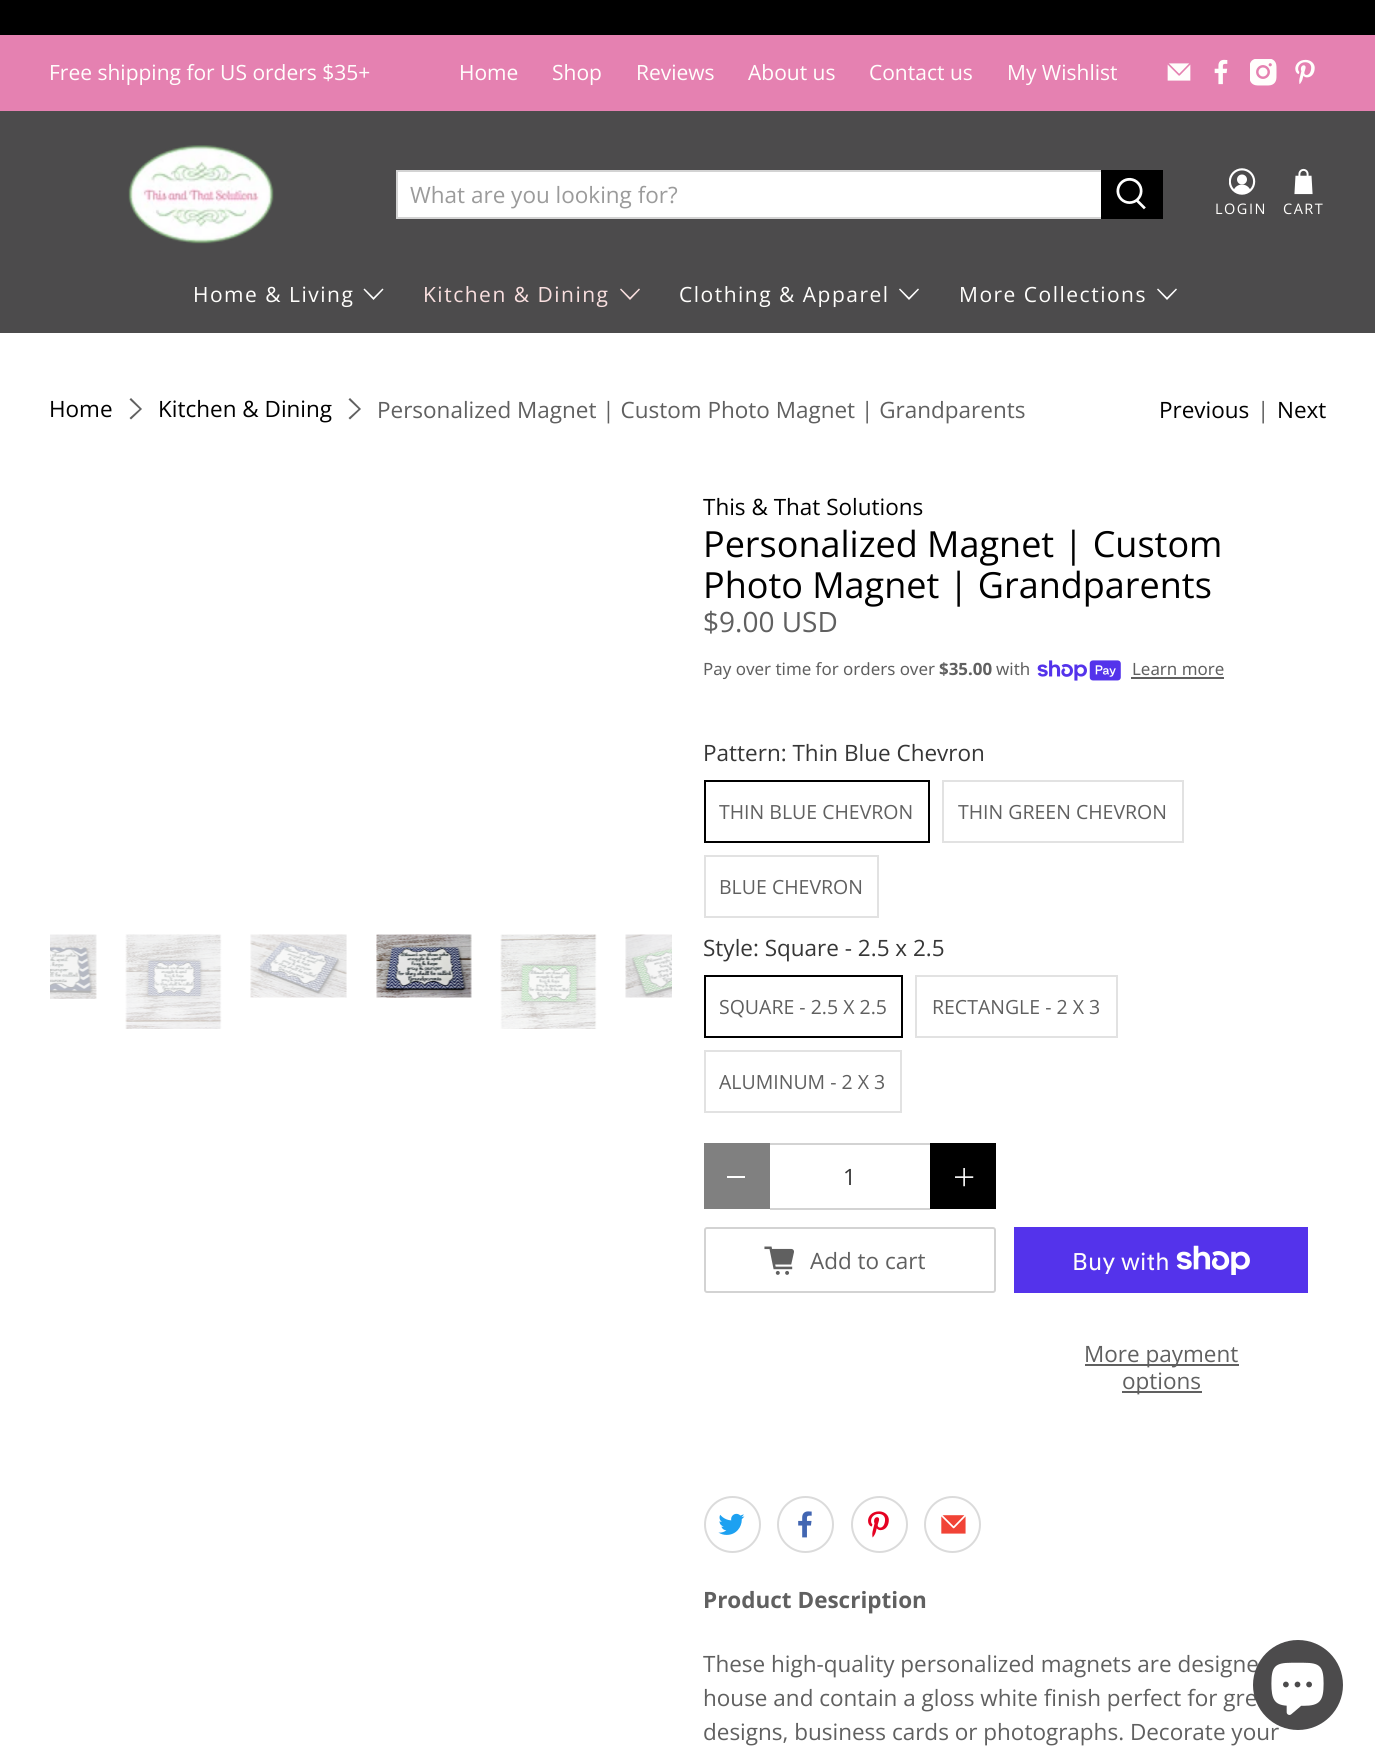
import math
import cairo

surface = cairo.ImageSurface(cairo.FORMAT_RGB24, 1375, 1761)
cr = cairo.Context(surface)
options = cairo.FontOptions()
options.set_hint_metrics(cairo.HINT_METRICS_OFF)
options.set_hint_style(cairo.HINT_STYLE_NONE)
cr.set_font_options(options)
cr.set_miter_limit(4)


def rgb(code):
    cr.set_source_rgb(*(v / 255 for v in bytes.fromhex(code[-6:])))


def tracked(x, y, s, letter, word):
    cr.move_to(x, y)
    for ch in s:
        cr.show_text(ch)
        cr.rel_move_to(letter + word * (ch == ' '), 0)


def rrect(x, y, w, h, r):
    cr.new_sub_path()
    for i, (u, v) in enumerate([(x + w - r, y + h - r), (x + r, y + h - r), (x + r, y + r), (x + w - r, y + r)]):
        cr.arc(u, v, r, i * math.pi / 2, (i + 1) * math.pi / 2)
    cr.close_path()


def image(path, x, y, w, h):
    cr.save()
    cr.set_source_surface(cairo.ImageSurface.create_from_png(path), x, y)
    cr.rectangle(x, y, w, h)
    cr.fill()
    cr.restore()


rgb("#ffffff")
cr.paint()
rgb("#000000")
cr.rectangle(0, 0, 1375, 35)
cr.fill()
rgb("#e581b1")
cr.rectangle(0, 35, 1375, 76)
cr.fill()
image("img/1.png", 1167, 63, 24, 18)
image("img/2.png", 1214, 59, 14, 26)
image("img/3.png", 1250, 59, 27, 27)
image("img/4.png", 1295, 59, 20, 25)
rgb("#4c4b4c")
cr.rectangle(0, 111, 1375, 222)
cr.fill()
image("img/5.png", 128, 145, 146, 99)
rgb("#ffffff")
cr.rectangle(397, 171, 705, 47)
cr.fill_preserve()
rgb("#d3d3d3")
cr.stroke()
rgb("#000000")
cr.rectangle(1101, 170, 62, 49)
cr.fill()
image("img/6.png", 1116, 177, 30, 33)
image("img/7.png", 1229, 168, 27, 27)
image("img/8.png", 1294, 168, 19, 27)
rgb("#ffffff")
cr.new_path()
cr.move_to(373.5, 300)
cr.line_to(363.5, 289.5)
cr.line_to(364.5, 288.5)
cr.line_to(373.5, 297.5)
cr.line_to(382.5, 288.5)
cr.line_to(383.5, 289.5)
cr.close_path()
cr.fill()
rgb("#f9dfdf")
cr.new_path()
cr.move_to(630, 300)
cr.line_to(620, 289.5)
cr.line_to(621, 288.5)
cr.line_to(630, 297.5)
cr.line_to(639, 288.5)
cr.line_to(640, 289.5)
cr.close_path()
cr.fill()
rgb("#ffffff")
cr.new_path()
cr.move_to(909, 300)
cr.line_to(899, 289.5)
cr.line_to(900, 288.5)
cr.line_to(909, 297.5)
cr.line_to(918, 288.5)
cr.line_to(919, 289.5)
cr.close_path()
cr.fill()
cr.new_path()
cr.move_to(1167, 300)
cr.line_to(1157, 289.5)
cr.line_to(1158, 288.5)
cr.line_to(1167, 297.5)
cr.line_to(1176, 288.5)
cr.line_to(1177, 289.5)
cr.close_path()
cr.fill()
rgb("#606060")
cr.new_path()
cr.move_to(131, 419.5)
cr.line_to(129.5, 418)
cr.line_to(139.5, 409)
cr.line_to(129.5, 399.5)
cr.line_to(131, 398)
cr.line_to(142, 409)
cr.close_path()
cr.fill()
cr.new_path()
cr.move_to(350, 419.5)
cr.line_to(348.5, 418)
cr.line_to(358.5, 409)
cr.line_to(348.5, 399.5)
cr.line_to(350, 398)
cr.line_to(361, 409)
cr.close_path()
cr.fill()
image("img/9.png", 50, 934, 47, 65)
image("img/10.png", 125, 934, 97, 95)
image("img/11.png", 250, 934, 97, 64)
image("img/12.png", 376, 934, 96, 64)
image("img/13.png", 500, 934, 97, 95)
image("img/14.png", 625, 934, 47, 64)
image("img/15.png", 1037, 660, 84, 21)
cr.rectangle(1131, 677, 93, 2)
cr.fill()
cr.rectangle(705, 781, 224, 61)
rgb("#000000")
cr.stroke()
cr.rectangle(943, 781, 240, 61)
rgb("#e2e2e2")
cr.stroke()
cr.rectangle(705, 856, 173, 61)
cr.stroke()
cr.rectangle(705, 976, 197, 61)
rgb("#000000")
cr.stroke()
cr.rectangle(916, 976, 201, 61)
rgb("#e2e2e2")
cr.stroke()
cr.rectangle(705, 1051, 196, 61)
cr.stroke()
for x, y, w, h, color in [
    (704, 1143, 66, 66, "#808080"),
    (727, 1176, 18, 2, "#ffffff"),
    (770, 1143, 160, 2, "#d3d3d3"),
    (770, 1208, 160, 2, "#d3d3d3"),
    (930, 1143, 66, 66, "#000000"),
]:
    rgb(color)
    cr.rectangle(x, y, w, h)
    cr.fill()
image("img/16.png", 955, 1168, 19, 19)
rrect(705, 1228, 290, 64, 2)
rgb("#d3d3d3")
cr.stroke()
image("img/17.png", 764, 1246, 30, 29)
rgb("#5433eb")
cr.rectangle(1014, 1227, 294, 66)
cr.fill()
image("img/18.png", 1176, 1245, 74, 30)
rgb("#606060")
cr.rectangle(1085, 1364, 154, 2)
cr.fill()
cr.rectangle(1122, 1391, 80, 2)
cr.fill()
cr.arc(732.5, 1524.5, 27.5, 0, 2 * math.pi)
rgb("#dbdbdb")
cr.stroke()
image("img/19.png", 718, 1513, 27, 22)
cr.arc(805.5, 1524.5, 27.5, 0, 2 * math.pi)
cr.stroke()
image("img/20.png", 798, 1511, 14, 27)
cr.arc(879.5, 1524.5, 27.5, 0, 2 * math.pi)
cr.stroke()
image("img/21.png", 868, 1511, 21, 27)
cr.arc(952.5, 1524.5, 27.5, 0, 2 * math.pi)
cr.stroke()
image("img/22.png", 941, 1515, 25, 19)
cr.select_font_face("Open Sans")
cr.set_font_size(21)
rgb("#fffefc")
for x, y, s in [
    (49, 80, "Free shipping for US orders $35+"),
    (459, 80, "Home"),
    (552, 80, "Shop"),
    (636, 80, "Reviews"),
    (748, 80, "About us"),
    (869, 80, "Contact us"),
    (1007, 80, "My Wishlist"),
]:
    cr.move_to(x, y)
    cr.show_text(s)
cr.set_font_size(22.5)
rgb("#9b9b9b")
cr.move_to(410, 203)
cr.show_text("What are you looking for?")
cr.set_font_size(14.5)
rgb("#fffefc")
tracked(1215, 214, "LOGIN", 1.5, 0)
tracked(1283, 214, "CART", 1.5, 0)
cr.set_font_size(21)
tracked(193, 302, "Home & Living", 1.5, 0)
rgb("#f9dfdf")
tracked(423, 302, "Kitchen & Dining", 1.5, 0)
rgb("#fffefc")
tracked(679, 302, "Clothing & Apparel", 1.5, 0)
tracked(959, 302, "More Collections", 1.5, 0)
cr.set_font_size(22.5)
rgb("#000000")
cr.move_to(49, 417)
cr.show_text("Home")
cr.move_to(158, 417)
cr.show_text("Kitchen & Dining")
rgb("#606060")
cr.move_to(377, 418)
cr.show_text("Personalized Magnet | Custom Photo Magnet | Grandparents")
rgb("#000000")
cr.move_to(1159, 418)
cr.show_text("Previous")
rgb("#606060")
cr.move_to(1257, 418)
cr.show_text("|")
rgb("#000000")
cr.move_to(1277, 418)
cr.show_text("Next")
cr.move_to(703, 515)
cr.show_text("This & That Solutions")
cr.set_font_size(36)
cr.move_to(703, 557)
cr.show_text("Personalized Magnet | Custom")
cr.move_to(703, 598)
cr.show_text("Photo Magnet | Grandparents")
cr.set_font_size(28)
rgb("#606060")
cr.move_to(703, 632)
cr.show_text("$9.00 USD")
cr.select_font_face("Noto Sans")
cr.set_font_size(16.9)
cr.move_to(703, 675)
cr.show_text("Pay over time for orders over")
cr.select_font_face("Noto Sans", cairo.FONT_SLANT_NORMAL, cairo.FONT_WEIGHT_BOLD)
cr.move_to(939, 675)
cr.show_text("$35.00")
cr.select_font_face("Noto Sans")
cr.move_to(996, 675)
cr.show_text("with")
cr.move_to(1132, 675)
cr.show_text("Learn more")
cr.select_font_face("Open Sans")
cr.set_font_size(22.5)
rgb("#363636")
cr.move_to(703, 761)
cr.show_text("Pattern: Thin Blue Chevron")
cr.set_font_size(19.5)
rgb("#606060")
for x, y, s in [
    (719, 819, "THIN BLUE CHEVRON"),
    (958, 819, "THIN GREEN CHEVRON"),
    (719, 894, "BLUE CHEVRON"),
]:
    cr.move_to(x, y)
    cr.show_text(s)
cr.set_font_size(22.5)
rgb("#363636")
cr.move_to(703, 956)
cr.show_text("Style: Square - 2.5 x 2.5")
cr.set_font_size(19.5)
rgb("#606060")
for x, y, s in [
    (719, 1014, "SQUARE - 2.5 X 2.5"),
    (932, 1014, "RECTANGLE - 2 X 3"),
    (719, 1089, "ALUMINUM - 2 X 3"),
]:
    cr.move_to(x, y)
    cr.show_text(s)
cr.set_font_size(22.5)
rgb("#363636")
cr.move_to(843, 1185)
cr.show_text("1")
rgb("#606060")
cr.move_to(810, 1269)
cr.show_text("Add to cart")
cr.select_font_face("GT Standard")
cr.set_font_size(24)
rgb("#fffefc")
cr.move_to(1072, 1270)
cr.show_text("Buy with")
cr.select_font_face("Open Sans")
cr.set_font_size(22.5)
rgb("#606060")
cr.move_to(1084, 1362)
cr.show_text("More payment")
cr.move_to(1122, 1389)
cr.show_text("options")
cr.select_font_face("Open Sans", cairo.FONT_SLANT_NORMAL, cairo.FONT_WEIGHT_BOLD)
cr.move_to(703, 1608)
cr.show_text("Product Description")
cr.select_font_face("Open Sans")
for x, y, s in [
    (703, 1672, "These high-quality personalized magnets are designe"),
    (703, 1706, "house and contain a gloss white finish perfect for gre"),
    (703, 1740, "designs, business cards or photographs. Decorate your"),
]:
    cr.move_to(x, y)
    cr.show_text(s)
rgb("#4c4b4c")
cr.new_path()
cr.arc(1298, 1685, 45, 0, 2 * math.pi)
cr.fill()
image("img/23.png", 1271, 1662, 53, 53)
surface.write_to_png("page.png")
